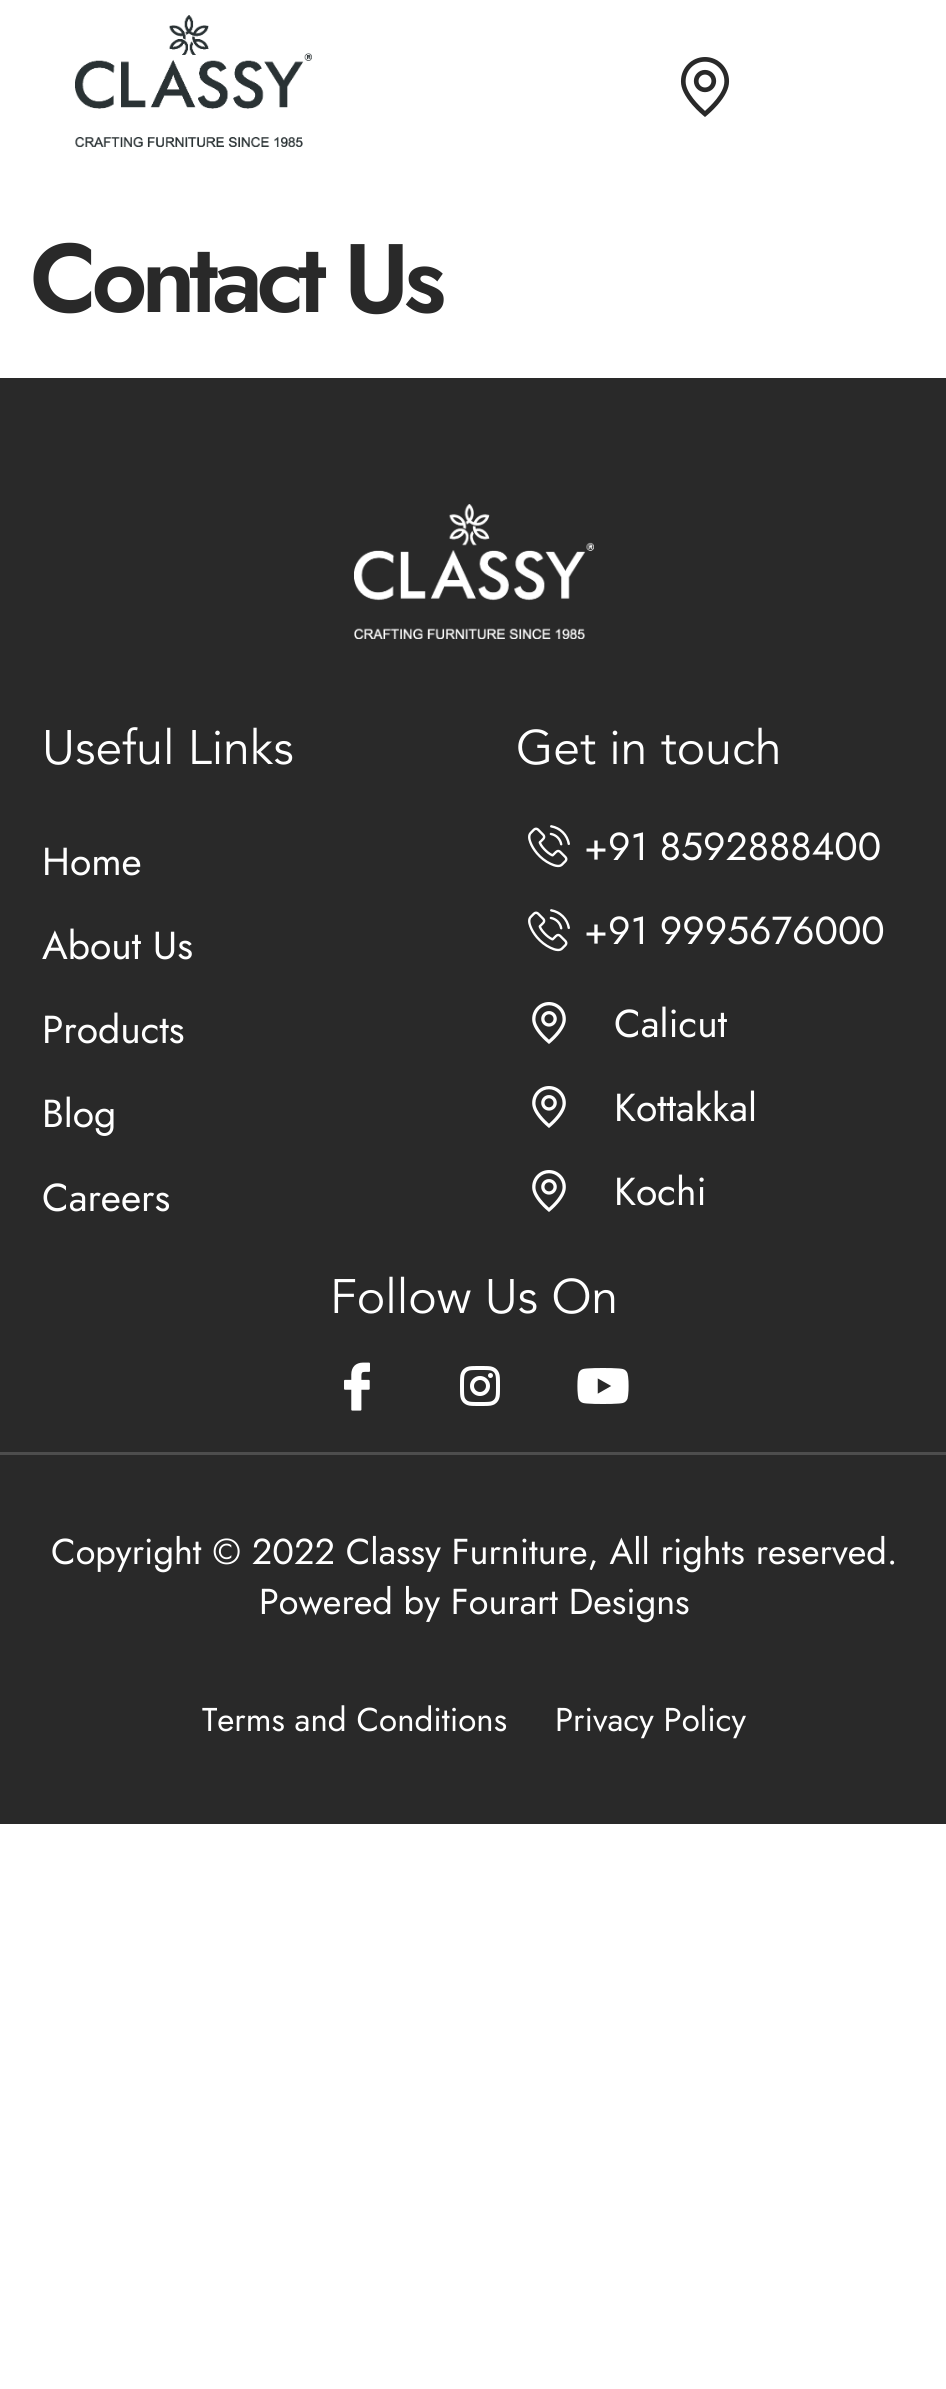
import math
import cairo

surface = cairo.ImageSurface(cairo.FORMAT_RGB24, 946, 2389)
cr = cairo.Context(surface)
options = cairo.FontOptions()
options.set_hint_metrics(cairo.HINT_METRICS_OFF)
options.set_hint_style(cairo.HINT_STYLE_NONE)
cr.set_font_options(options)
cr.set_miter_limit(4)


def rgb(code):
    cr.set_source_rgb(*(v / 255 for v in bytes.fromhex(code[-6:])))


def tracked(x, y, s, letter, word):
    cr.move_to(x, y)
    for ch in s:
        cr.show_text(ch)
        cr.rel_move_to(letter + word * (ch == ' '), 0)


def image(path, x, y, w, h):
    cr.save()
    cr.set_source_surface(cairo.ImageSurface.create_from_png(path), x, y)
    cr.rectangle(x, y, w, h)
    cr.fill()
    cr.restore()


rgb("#ffffff")
cr.paint()
image("img/1.png", 75, 15, 237, 132)
image("img/2.png", 680, 57, 50, 60)
rgb("#292929")
cr.rectangle(0, 378, 946, 1446)
cr.fill()
rgb("#4d4d4d")
cr.rectangle(0, 1452, 946, 3)
cr.fill()
image("img/3.png", 354, 504, 240, 135)
image("img/4.png", 528, 825, 42, 43)
image("img/4.png", 528, 909, 42, 43)
image("img/5.png", 532, 1002, 34, 42)
image("img/5.png", 532, 1086, 34, 42)
image("img/5.png", 532, 1170, 34, 42)
image("img/6.png", 344, 1362, 26, 49)
image("img/7.png", 460, 1366, 40, 40)
image("img/8.png", 577, 1368, 52, 36)
cr.select_font_face("Jost SemiBold")
cr.set_font_size(97)
rgb("#292929")
tracked(30, 312, "Contact Us", -6, 0)
cr.select_font_face("Avenir")
cr.set_font_size(48)
rgb("#ffffff")
cr.move_to(42, 764)
cr.show_text("Useful Links")
cr.select_font_face("Jost")
cr.set_font_size(39)
for x, y, s in [
    (42, 875, "Home"),
    (42, 959, "About Us"),
    (42, 1043, "Products"),
    (42, 1127, "Blog"),
    (42, 1211, "Careers"),
]:
    cr.move_to(x, y)
    cr.show_text(s)
cr.select_font_face("Avenir")
cr.set_font_size(48)
cr.move_to(516, 764)
cr.show_text("Get in touch")
cr.select_font_face("Jost")
cr.set_font_size(39)
for x, y, s in [
    (584, 860, "+91 8592888400"),
    (584, 944, "+91 9995676000"),
    (614, 1037, "Calicut"),
    (614, 1121, "Kottakkal"),
    (614, 1205, "Kochi"),
]:
    cr.move_to(x, y)
    cr.show_text(s)
cr.select_font_face("Avenir")
cr.set_font_size(48)
cr.move_to(330, 1313)
cr.show_text("Follow Us On")
cr.select_font_face("Jost")
cr.set_font_size(36)
cr.move_to(51, 1564)
cr.show_text("Copyright © 2022 Classy Furniture, All rights reserved.")
cr.move_to(259, 1614)
cr.show_text("Powered by Fourart Designs")
cr.set_font_size(33)
cr.move_to(202, 1731)
cr.show_text("Terms and Conditions")
cr.move_to(555, 1731)
cr.show_text("Privacy Policy")
surface.write_to_png("page.png")
